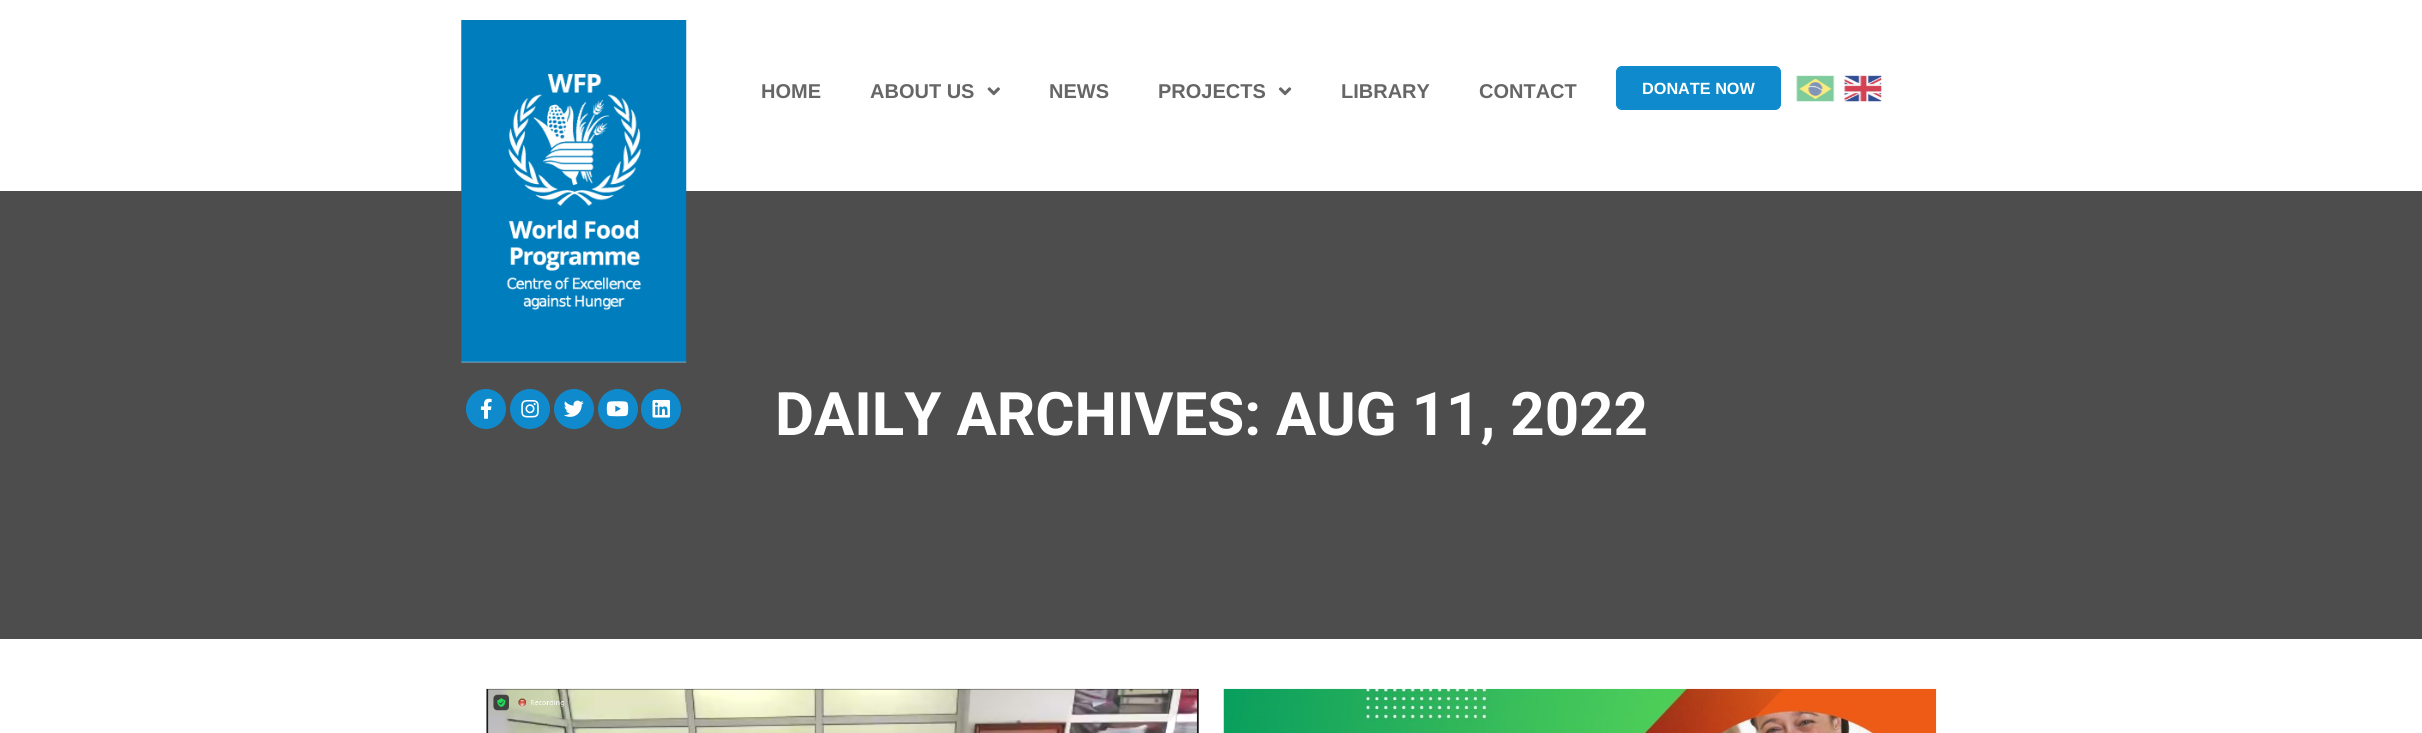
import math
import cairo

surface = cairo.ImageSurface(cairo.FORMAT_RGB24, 2422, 733)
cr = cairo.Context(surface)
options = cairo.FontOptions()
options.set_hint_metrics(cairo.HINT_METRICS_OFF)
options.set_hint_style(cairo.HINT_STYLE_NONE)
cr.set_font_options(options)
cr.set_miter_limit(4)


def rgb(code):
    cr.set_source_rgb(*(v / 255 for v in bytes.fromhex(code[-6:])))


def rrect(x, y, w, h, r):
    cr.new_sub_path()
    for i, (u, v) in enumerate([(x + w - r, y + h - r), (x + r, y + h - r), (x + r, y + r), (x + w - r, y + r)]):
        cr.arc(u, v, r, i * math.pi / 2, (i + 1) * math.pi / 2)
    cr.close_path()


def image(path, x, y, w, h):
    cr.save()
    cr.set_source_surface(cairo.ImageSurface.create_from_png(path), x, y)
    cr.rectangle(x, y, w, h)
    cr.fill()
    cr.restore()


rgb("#ffffff")
cr.paint()
rgb("#4d4d4d")
cr.rectangle(0, 191, 2422, 448)
cr.fill()
image("img/1.png", 461, 20, 226, 343)
rgb("#0f8bcd")
cr.arc(486, 409, 20, 0, 2 * math.pi)
cr.fill()
image("img/2.png", 480, 398, 12, 21)
cr.arc(530, 409, 20, 0, 2 * math.pi)
cr.fill()
image("img/3.png", 521, 400, 18, 18)
cr.arc(574, 409, 20, 0, 2 * math.pi)
cr.fill()
image("img/4.png", 564, 400, 20, 17)
cr.arc(618, 409, 20, 0, 2 * math.pi)
cr.fill()
image("img/5.png", 606, 401, 23, 16)
cr.arc(661, 409, 20, 0, 2 * math.pi)
cr.fill()
image("img/6.png", 652, 400, 18, 18)
image("img/7.png", 987, 87, 13, 9)
image("img/8.png", 1278, 87, 14, 9)
rrect(1616.5, 66.5, 164, 43, 5.5)
cr.fill_preserve()
cr.set_line_width(1)
cr.stroke()
image("img/9.png", 1796, 75, 39, 27)
image("img/10.png", 1844, 75, 38, 27)
image("img/11.png", 486, 688, 713, 45)
image("img/12.png", 1223, 688, 714, 45)
cr.select_font_face("Liberation Sans", cairo.FONT_SLANT_NORMAL, cairo.FONT_WEIGHT_BOLD)
cr.set_font_size(20)
rgb("#666666")
for x, y, s in [
    (761, 98, "HOME"),
    (870, 98, "ABOUT US"),
    (1049, 98, "NEWS"),
    (1158, 98, "PROJECTS"),
    (1341, 98, "LIBRARY"),
    (1479, 98, "CONTACT"),
]:
    cr.move_to(x, y)
    cr.show_text(s)
cr.set_font_size(16.25)
rgb("#ffffff")
cr.move_to(1642, 94)
cr.show_text("DONATE NOW")
cr.select_font_face("Roboto", cairo.FONT_SLANT_NORMAL, cairo.FONT_WEIGHT_BOLD)
cr.set_font_size(60)
cr.move_to(775, 435)
cr.show_text("DAILY ARCHIVES: AUG 11, 2022")
surface.write_to_png("page.png")
